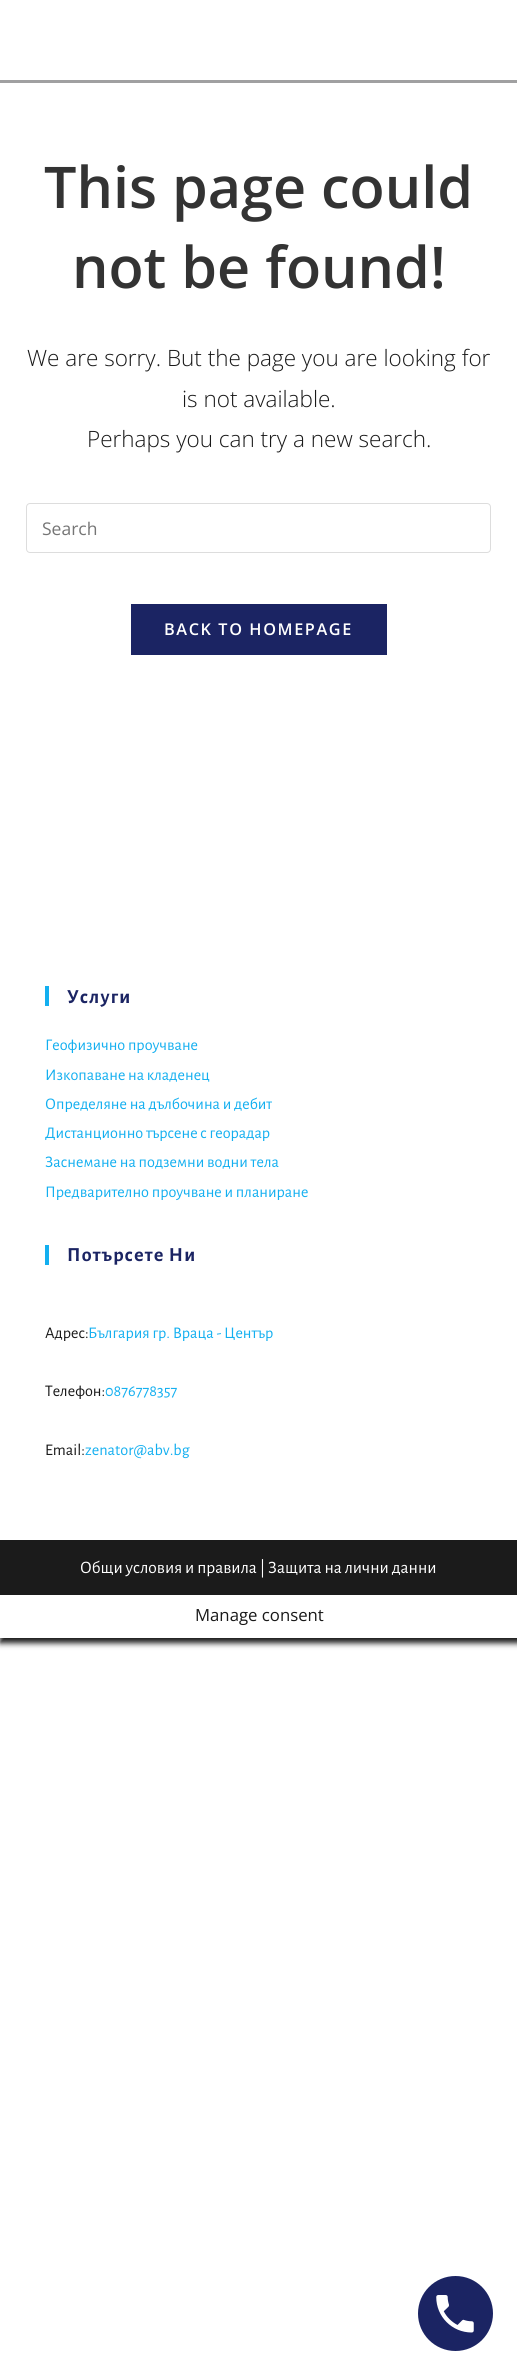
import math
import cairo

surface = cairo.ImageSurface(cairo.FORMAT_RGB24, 517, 2376)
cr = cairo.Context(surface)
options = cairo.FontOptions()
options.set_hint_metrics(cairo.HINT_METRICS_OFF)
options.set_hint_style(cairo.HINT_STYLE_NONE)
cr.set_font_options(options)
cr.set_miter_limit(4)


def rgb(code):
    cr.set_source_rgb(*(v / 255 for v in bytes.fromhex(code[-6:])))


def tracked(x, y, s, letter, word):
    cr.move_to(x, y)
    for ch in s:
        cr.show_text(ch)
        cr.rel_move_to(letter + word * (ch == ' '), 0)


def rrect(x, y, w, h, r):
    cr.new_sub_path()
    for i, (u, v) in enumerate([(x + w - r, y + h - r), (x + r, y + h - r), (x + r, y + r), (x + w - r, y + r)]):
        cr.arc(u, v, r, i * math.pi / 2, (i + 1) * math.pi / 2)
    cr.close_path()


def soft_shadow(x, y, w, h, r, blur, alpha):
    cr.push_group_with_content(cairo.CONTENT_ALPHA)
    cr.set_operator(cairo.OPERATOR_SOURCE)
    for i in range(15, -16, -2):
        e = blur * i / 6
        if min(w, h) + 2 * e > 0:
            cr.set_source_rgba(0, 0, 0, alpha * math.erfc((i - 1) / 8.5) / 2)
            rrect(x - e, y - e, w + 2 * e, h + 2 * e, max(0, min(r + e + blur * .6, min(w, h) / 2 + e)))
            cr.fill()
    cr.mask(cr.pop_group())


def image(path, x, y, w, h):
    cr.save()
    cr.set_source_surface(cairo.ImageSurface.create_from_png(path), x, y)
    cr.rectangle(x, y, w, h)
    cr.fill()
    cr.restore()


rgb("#ffffff")
cr.paint()
rgb("#a0a0a1")
cr.rectangle(0, 80, 517, 3)
cr.fill()
rrect(26.5, 503.5, 464, 49, 3.5)
rgb("#dddddd")
cr.set_line_width(1)
cr.stroke()
for x, y, w, h, color in [
    (131, 604, 256, 51, "#1b2463"),
    (45, 986, 4, 20, "#13aff0"),
    (45, 1245, 4, 20, "#13aff0"),
]:
    rgb(color)
    cr.rectangle(x, y, w, h)
    cr.fill()
cr.save()
cr.set_fill_rule(cairo.FILL_RULE_EVEN_ODD)
cr.new_path()
cr.move_to(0, 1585)
cr.line_to(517, 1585)
cr.line_to(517, 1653)
cr.line_to(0, 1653)
cr.close_path()
cr.move_to(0, 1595)
cr.line_to(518, 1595)
cr.line_to(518, 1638)
cr.line_to(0, 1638)
cr.close_path()
cr.clip()
rgb("#161616")
soft_shadow(0, 1595, 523, 48, 0, 3, 1)
cr.restore()
rgb("#1b1b1b")
cr.rectangle(0, 1540, 517, 55)
cr.fill()
rgb("#1b2463")
cr.arc(455.5, 2313.5, 37.5, 0, 2 * math.pi)
cr.fill()
image("img/1.png", 436, 2295, 38, 38)
cr.select_font_face("Open Sans SemiBold")
cr.set_font_size(57.5)
rgb("#333333")
cr.move_to(44, 208)
cr.show_text("This page could")
cr.move_to(72, 288)
cr.show_text("not be found!")
cr.select_font_face("Open Sans Light")
cr.set_font_size(22.5)
rgb("#191919")
for x, y, s in [
    (27, 366, "We are sorry. But the page you are looking for"),
    (182, 407, "is not available."),
    (87, 447, "Perhaps you can try a new search."),
]:
    cr.move_to(x, y)
    cr.show_text(s)
cr.select_font_face("Open Sans")
cr.set_font_size(17.5)
rgb("#757575")
cr.move_to(42, 535)
cr.show_text("Search")
cr.select_font_face("Open Sans SemiBold")
cr.set_font_size(16.25)
rgb("#ffffff")
tracked(164, 635, "BACK TO HOMEPAGE", 1.6, 0)
cr.select_font_face("Alegreya Sans", cairo.FONT_SLANT_NORMAL, cairo.FONT_WEIGHT_BOLD)
cr.set_font_size(20)
rgb("#1b2463")
tracked(67, 1003, "Услуги", 1.25, 0)
cr.select_font_face("Alegreya Sans")
cr.set_font_size(16.25)
rgb("#13aff0")
for x, y, s in [
    (45, 1050, "Геофизично проучване"),
    (45, 1080, "Изкопаване на кладенец"),
    (45, 1109, "Определяне на дълбочина и дебит"),
    (45, 1138, "Дистанционно търсене с георадар"),
    (45, 1167, "Заснемане на подземни водни тела"),
    (45, 1197, "Предварително проучване и планиране"),
]:
    cr.move_to(x, y)
    cr.show_text(s)
cr.select_font_face("Alegreya Sans", cairo.FONT_SLANT_NORMAL, cairo.FONT_WEIGHT_BOLD)
cr.set_font_size(20)
rgb("#1b2463")
tracked(67, 1261, "Потърсете Ни", 1.25, 0)
cr.select_font_face("Alegreya Sans")
cr.set_font_size(16.25)
rgb("#191919")
cr.move_to(45, 1338)
cr.show_text("Адрес:")
rgb("#13aff0")
cr.move_to(88, 1338)
cr.show_text("България гр. Враца - Център")
rgb("#191919")
cr.move_to(45, 1396)
cr.show_text("Телефон:")
rgb("#13aff0")
cr.move_to(105, 1396)
cr.show_text("0876778357")
rgb("#191919")
cr.move_to(45, 1455)
cr.show_text("Email:")
rgb("#13aff0")
cr.move_to(85, 1455)
cr.show_text("zenator@abv.bg")
cr.set_font_size(17.5)
rgb("#ffffff")
cr.move_to(80, 1573)
cr.show_text("Общи условия и правила | Защита на лични данни")
cr.select_font_face("Open Sans")
cr.set_font_size(16.75)
rgb("#191919")
cr.move_to(195, 1621)
cr.show_text("Manage consent")
surface.write_to_png("page.png")
